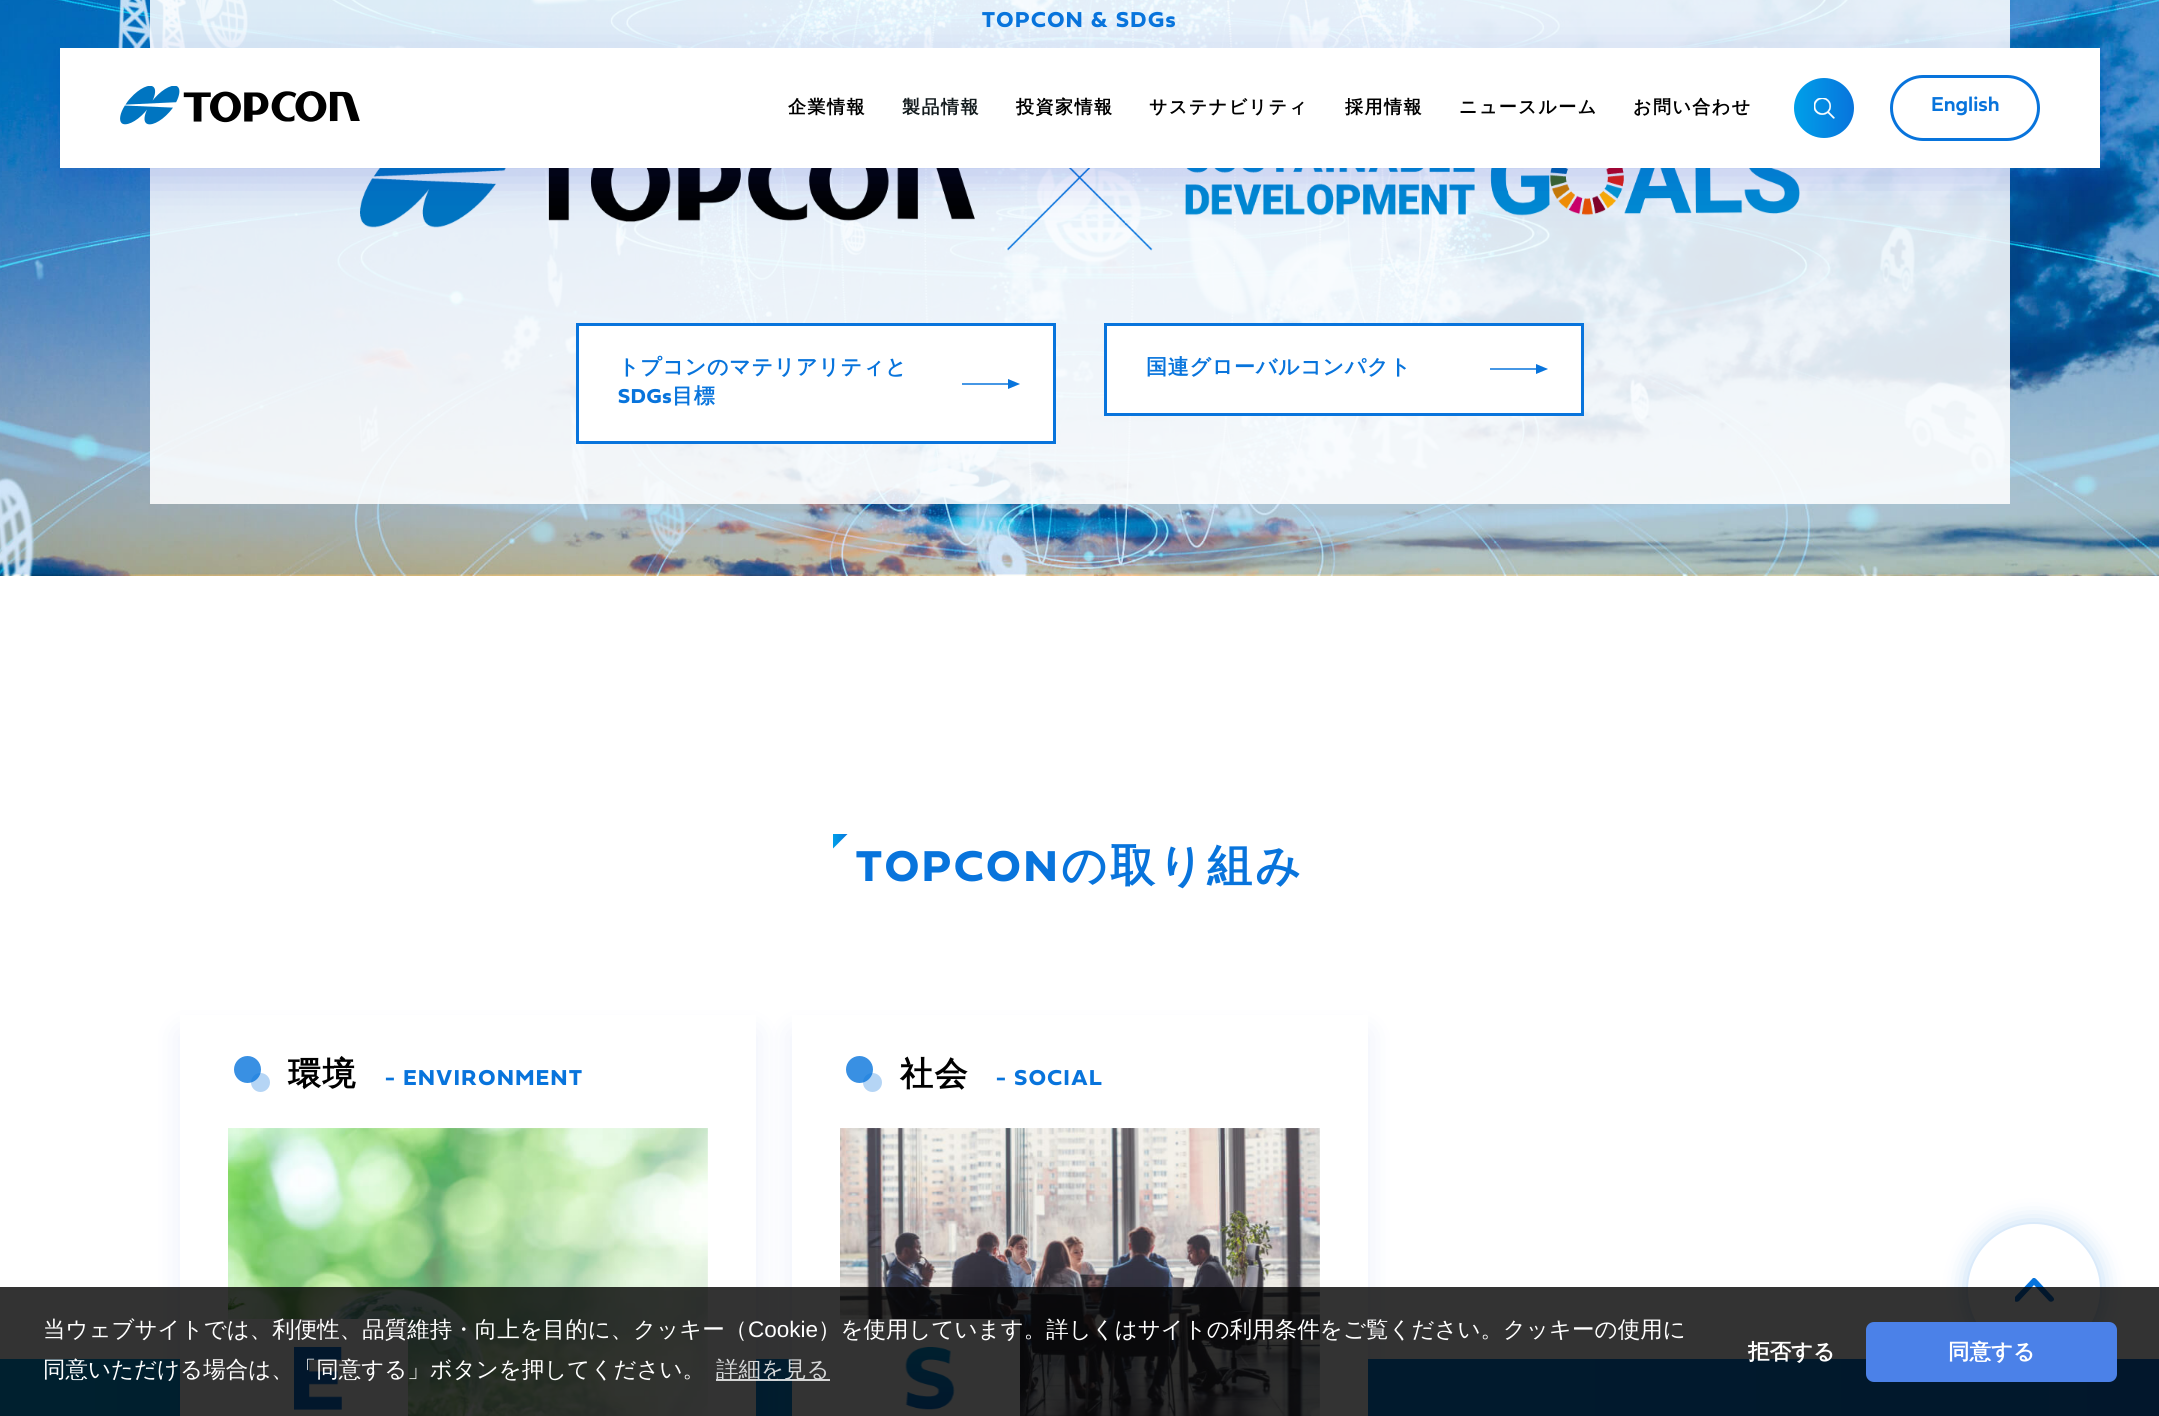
import math
import cairo

surface = cairo.ImageSurface(cairo.FORMAT_RGB24, 2159, 1416)
cr = cairo.Context(surface)
options = cairo.FontOptions()
options.set_hint_metrics(cairo.HINT_METRICS_OFF)
options.set_hint_style(cairo.HINT_STYLE_NONE)
cr.set_font_options(options)
cr.set_miter_limit(4)


def rgb(code):
    cr.set_source_rgb(*(v / 255 for v in bytes.fromhex(code[-6:])))


def tracked(x, y, s, letter, word):
    cr.move_to(x, y)
    for ch in s:
        cr.show_text(ch)
        cr.rel_move_to(letter + word * (ch == ' '), 0)


def rrect(x, y, w, h, r):
    cr.new_sub_path()
    for i, (u, v) in enumerate([(x + w - r, y + h - r), (x + r, y + h - r), (x + r, y + r), (x + w - r, y + r)]):
        cr.arc(u, v, r, i * math.pi / 2, (i + 1) * math.pi / 2)
    cr.close_path()


def soft_shadow(x, y, w, h, r, blur, alpha):
    cr.push_group_with_content(cairo.CONTENT_ALPHA)
    cr.set_operator(cairo.OPERATOR_SOURCE)
    for i in range(15, -16, -2):
        e = blur * i / 6
        if min(w, h) + 2 * e > 0:
            cr.set_source_rgba(0, 0, 0, alpha * math.erfc((i - 1) / 8.5) / 2)
            rrect(x - e, y - e, w + 2 * e, h + 2 * e, max(0, min(r + e + blur * .6, min(w, h) / 2 + e)))
            cr.fill()
    cr.mask(cr.pop_group())


def image(path, x, y, w, h):
    cr.save()
    cr.set_source_surface(cairo.ImageSurface.create_from_png(path), x, y)
    cr.rectangle(x, y, w, h)
    cr.fill()
    cr.restore()


rgb("#ffffff")
cr.paint()
image("img/1.png", 0, 0, 2159, 576)
cr.set_source_rgba(1, 1, 1, 0.86)
cr.rectangle(150, 0, 1860, 504)
cr.fill()
image("img/2.png", 360, 168, 1440, 83)
rgb("#ffffff")
cr.rectangle(577.5, 324.5, 477, 118)
cr.fill_preserve()
rgb("#0874dc")
cr.set_line_width(3)
cr.stroke()
rgb("#4697e5")
cr.rectangle(962, 383, 48, 2)
cr.fill()
rgb("#0874dc")
cr.new_path()
cr.move_to(1020, 384)
cr.line_to(1008, 379)
cr.line_to(1008, 389)
cr.close_path()
cr.fill()
rgb("#ffffff")
cr.rectangle(1105.5, 324.5, 477, 90)
cr.fill_preserve()
rgb("#0874dc")
cr.stroke()
rgb("#4697e5")
cr.rectangle(1490, 368, 48, 2)
cr.fill()
rgb("#0874dc")
cr.new_path()
cr.move_to(1548, 369)
cr.line_to(1536, 364)
cr.line_to(1536, 374)
cr.close_path()
cr.fill()
cr.save()
cr.rectangle(833, 834, 15, 15)
cr.clip()
gradient = cairo.LinearGradient(833, 842, 848, 842)
gradient.add_color_stop_rgba(0, 0, 0.627, 0.914, 1)
gradient.add_color_stop_rgba(1, 0.031, 0.455, 0.863, 1)
cr.set_source(gradient)
cr.new_path()
cr.move_to(832.5, 849)
cr.line_to(832.5, 834)
cr.line_to(847.5, 834)
cr.fill()
cr.restore()
gradient = cairo.LinearGradient(0, 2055, 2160, 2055)
gradient.add_color_stop_rgba(0, 0, 0.627, 0.914, 1)
gradient.add_color_stop_rgba(1, 0.031, 0.455, 0.863, 1)
cr.set_source(gradient)
cr.rectangle(0, 1359, 2159, 57)
cr.fill()
rgb("#0a36c5")
soft_shadow(180, 1032, 576, 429, 0, 15, 0.08)
rgb("#ffffff")
cr.rectangle(180, 1015, 576, 401)
cr.fill()
rgb("#b5d5f5")
cr.arc(260.5, 1082.5, 9.5, 0, 2 * math.pi)
cr.fill()
cr.set_source_rgba(0.031, 0.455, 0.863, 0.8)
cr.arc(247.5, 1069.5, 13.5, 0, 2 * math.pi)
cr.fill()
image("img/3.png", 228, 1128, 480, 288)
rgb("#ffffff")
cr.rectangle(228, 1319, 180, 97)
cr.fill()
image("img/4.png", 294, 1347, 48, 63)
rgb("#0a36c5")
soft_shadow(792, 1032, 576, 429, 0, 15, 0.08)
rgb("#ffffff")
cr.rectangle(792, 1015, 576, 401)
cr.fill()
rgb("#b5d5f5")
cr.arc(872.5, 1082.5, 9.5, 0, 2 * math.pi)
cr.fill()
cr.set_source_rgba(0.031, 0.455, 0.863, 0.8)
cr.arc(859.5, 1069.5, 13.5, 0, 2 * math.pi)
cr.fill()
image("img/5.png", 840, 1128, 480, 288)
rgb("#ffffff")
cr.rectangle(840, 1319, 180, 97)
cr.fill()
image("img/6.png", 905, 1347, 50, 63)
rgb("#0c21c3")
soft_shadow(60, 60, 2040, 120, 0, 22, 0.2)
rgb("#ffffff")
cr.rectangle(60, 48, 2040, 120)
cr.fill()
image("img/7.png", 120, 86, 240, 39)
gradient = cairo.LinearGradient(1794, 108, 1854, 108)
gradient.add_color_stop_rgba(0, 0, 0.627, 0.914, 1)
gradient.add_color_stop_rgba(1, 0.031, 0.455, 0.863, 1)
cr.set_source(gradient)
cr.arc(1824, 108, 30, 0, 2 * math.pi)
cr.fill()
image("img/8.png", 1814, 98, 21, 21)
rrect(1891.5, 76.5, 147, 63, 31.5)
rgb("#0874dc")
cr.stroke()
rgb("#0874dc")
soft_shadow(1968, 1224, 132, 132, 66, 12, 0.3)
rgb("#ffffff")
cr.arc(2034, 1290, 66, 0, 2 * math.pi)
cr.fill()
cr.save()
cr.rectangle(2015, 1278, 40, 24)
cr.clip()
rgb("#0874dc")
cr.new_path()
cr.move_to(2034, 1285)
cr.line_to(2019, 1301)
cr.curve_to(2016, 1303, 2013, 1301, 2014, 1298)
cr.line_to(2033, 1278)
cr.curve_to(2035, 1277, 2037, 1280, 2039, 1282)
cr.line_to(2050, 1294)
cr.curve_to(2052, 1296, 2056, 1299, 2053, 1301)
cr.curve_to(2052, 1302, 2050, 1302, 2049, 1301)
cr.close_path()
cr.fill()
cr.restore()
cr.set_source_rgba(0, 0, 0, 0.8)
cr.rectangle(0, 1287, 2159, 129)
cr.fill()
cr.set_source_rgba(1, 1, 1, 0.8)
cr.rectangle(716, 1379, 114, 2)
cr.fill()
rgb("#4b81e8")
rrect(1866, 1322, 251, 60, 8)
cr.fill()
cr.select_font_face("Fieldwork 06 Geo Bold", cairo.FONT_SLANT_NORMAL, cairo.FONT_WEIGHT_BOLD)
cr.set_font_size(22.5)
rgb("#0874dc")
tracked(982, 27, "TOPCON & SDGs", 1.5, 0)
cr.select_font_face("WenQuanYi Zen Hei", cairo.FONT_SLANT_NORMAL, cairo.FONT_WEIGHT_BOLD)
cr.set_font_size(21)
tracked(618, 374, "トプコンのマテリアリティと", 0.75, 0)
cr.select_font_face("Fieldwork 06 Geo Bold", cairo.FONT_SLANT_NORMAL, cairo.FONT_WEIGHT_BOLD)
tracked(618, 403, "SDGs", 0.75, 0)
cr.select_font_face("WenQuanYi Zen Hei", cairo.FONT_SLANT_NORMAL, cairo.FONT_WEIGHT_BOLD)
tracked(672, 403, "目標", 0.75, 0)
tracked(1146, 374, "国連グローバルコンパクト", 0.75, 0)
cr.select_font_face("Fieldwork 06 Geo Bold", cairo.FONT_SLANT_NORMAL, cairo.FONT_WEIGHT_BOLD)
cr.set_font_size(45)
tracked(856, 881, "TOPCON", 3, 0)
cr.select_font_face("WenQuanYi Zen Hei", cairo.FONT_SLANT_NORMAL, cairo.FONT_WEIGHT_BOLD)
tracked(1061, 881, "の取り組み", 3, 0)
cr.set_font_size(33)
rgb("#000000")
tracked(288, 1085, "環境", 1.5, 0)
cr.select_font_face("Fieldwork 06 Geo Bold", cairo.FONT_SLANT_NORMAL, cairo.FONT_WEIGHT_BOLD)
cr.set_font_size(22.5)
rgb("#0874dc")
tracked(385, 1085, "- ENVIRONMENT", 1.5, 0)
cr.select_font_face("WenQuanYi Zen Hei", cairo.FONT_SLANT_NORMAL, cairo.FONT_WEIGHT_BOLD)
cr.set_font_size(33)
rgb("#000000")
tracked(900, 1085, "社会", 1.5, 0)
cr.select_font_face("Fieldwork 06 Geo Bold", cairo.FONT_SLANT_NORMAL, cairo.FONT_WEIGHT_BOLD)
cr.set_font_size(22.5)
rgb("#0874dc")
tracked(996, 1085, "- SOCIAL", 1.5, 0)
cr.select_font_face("WenQuanYi Zen Hei", cairo.FONT_SLANT_NORMAL, cairo.FONT_WEIGHT_BOLD)
cr.set_font_size(18)
rgb("#000000")
tracked(788, 113, "企業情報", 1.5, 0)
rgb("#121a1d")
tracked(902, 113, "製品情報", 1.5, 0)
rgb("#000000")
for x, y, s in [
    (1016, 113, "投資家情報"),
    (1149, 113, "サステナビリティ"),
    (1345, 113, "採用情報"),
    (1459, 113, "ニュースルーム"),
    (1633, 113, "お問い合わせ"),
]:
    tracked(x, y, s, 1.5, 0)
cr.select_font_face("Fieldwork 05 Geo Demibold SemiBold")
cr.set_font_size(21)
rgb("#0874dc")
cr.move_to(1931, 111)
cr.show_text("English")
cr.select_font_face("WenQuanYi Zen Hei Medium")
cr.set_font_size(22.5)
rgb("#ffffff")
cr.move_to(43, 1337)
cr.show_text("当ウェブサイトでは、利便性、品質維持・向上を目的に、クッキー（")
cr.select_font_face("Liberation Sans")
cr.move_to(748, 1337)
cr.show_text("Cookie")
cr.select_font_face("WenQuanYi Zen Hei Medium")
cr.move_to(818, 1337)
cr.show_text("）を使用しています。詳しくはサイトの利用条件をご覧ください。クッキーの使用に")
cr.move_to(43, 1377)
cr.show_text("同意いただける場合は、「同意する」ボタンを押してください。")
rgb("#d5d7d8")
cr.move_to(716, 1377)
cr.show_text("詳細を見る")
cr.select_font_face("WenQuanYi Zen Hei", cairo.FONT_SLANT_NORMAL, cairo.FONT_WEIGHT_BOLD)
cr.set_font_size(21.5)
rgb("#ffffff")
cr.move_to(1748, 1359)
cr.show_text("拒否する")
cr.move_to(1948, 1359)
cr.show_text("同意する")
surface.write_to_png("page.png")
